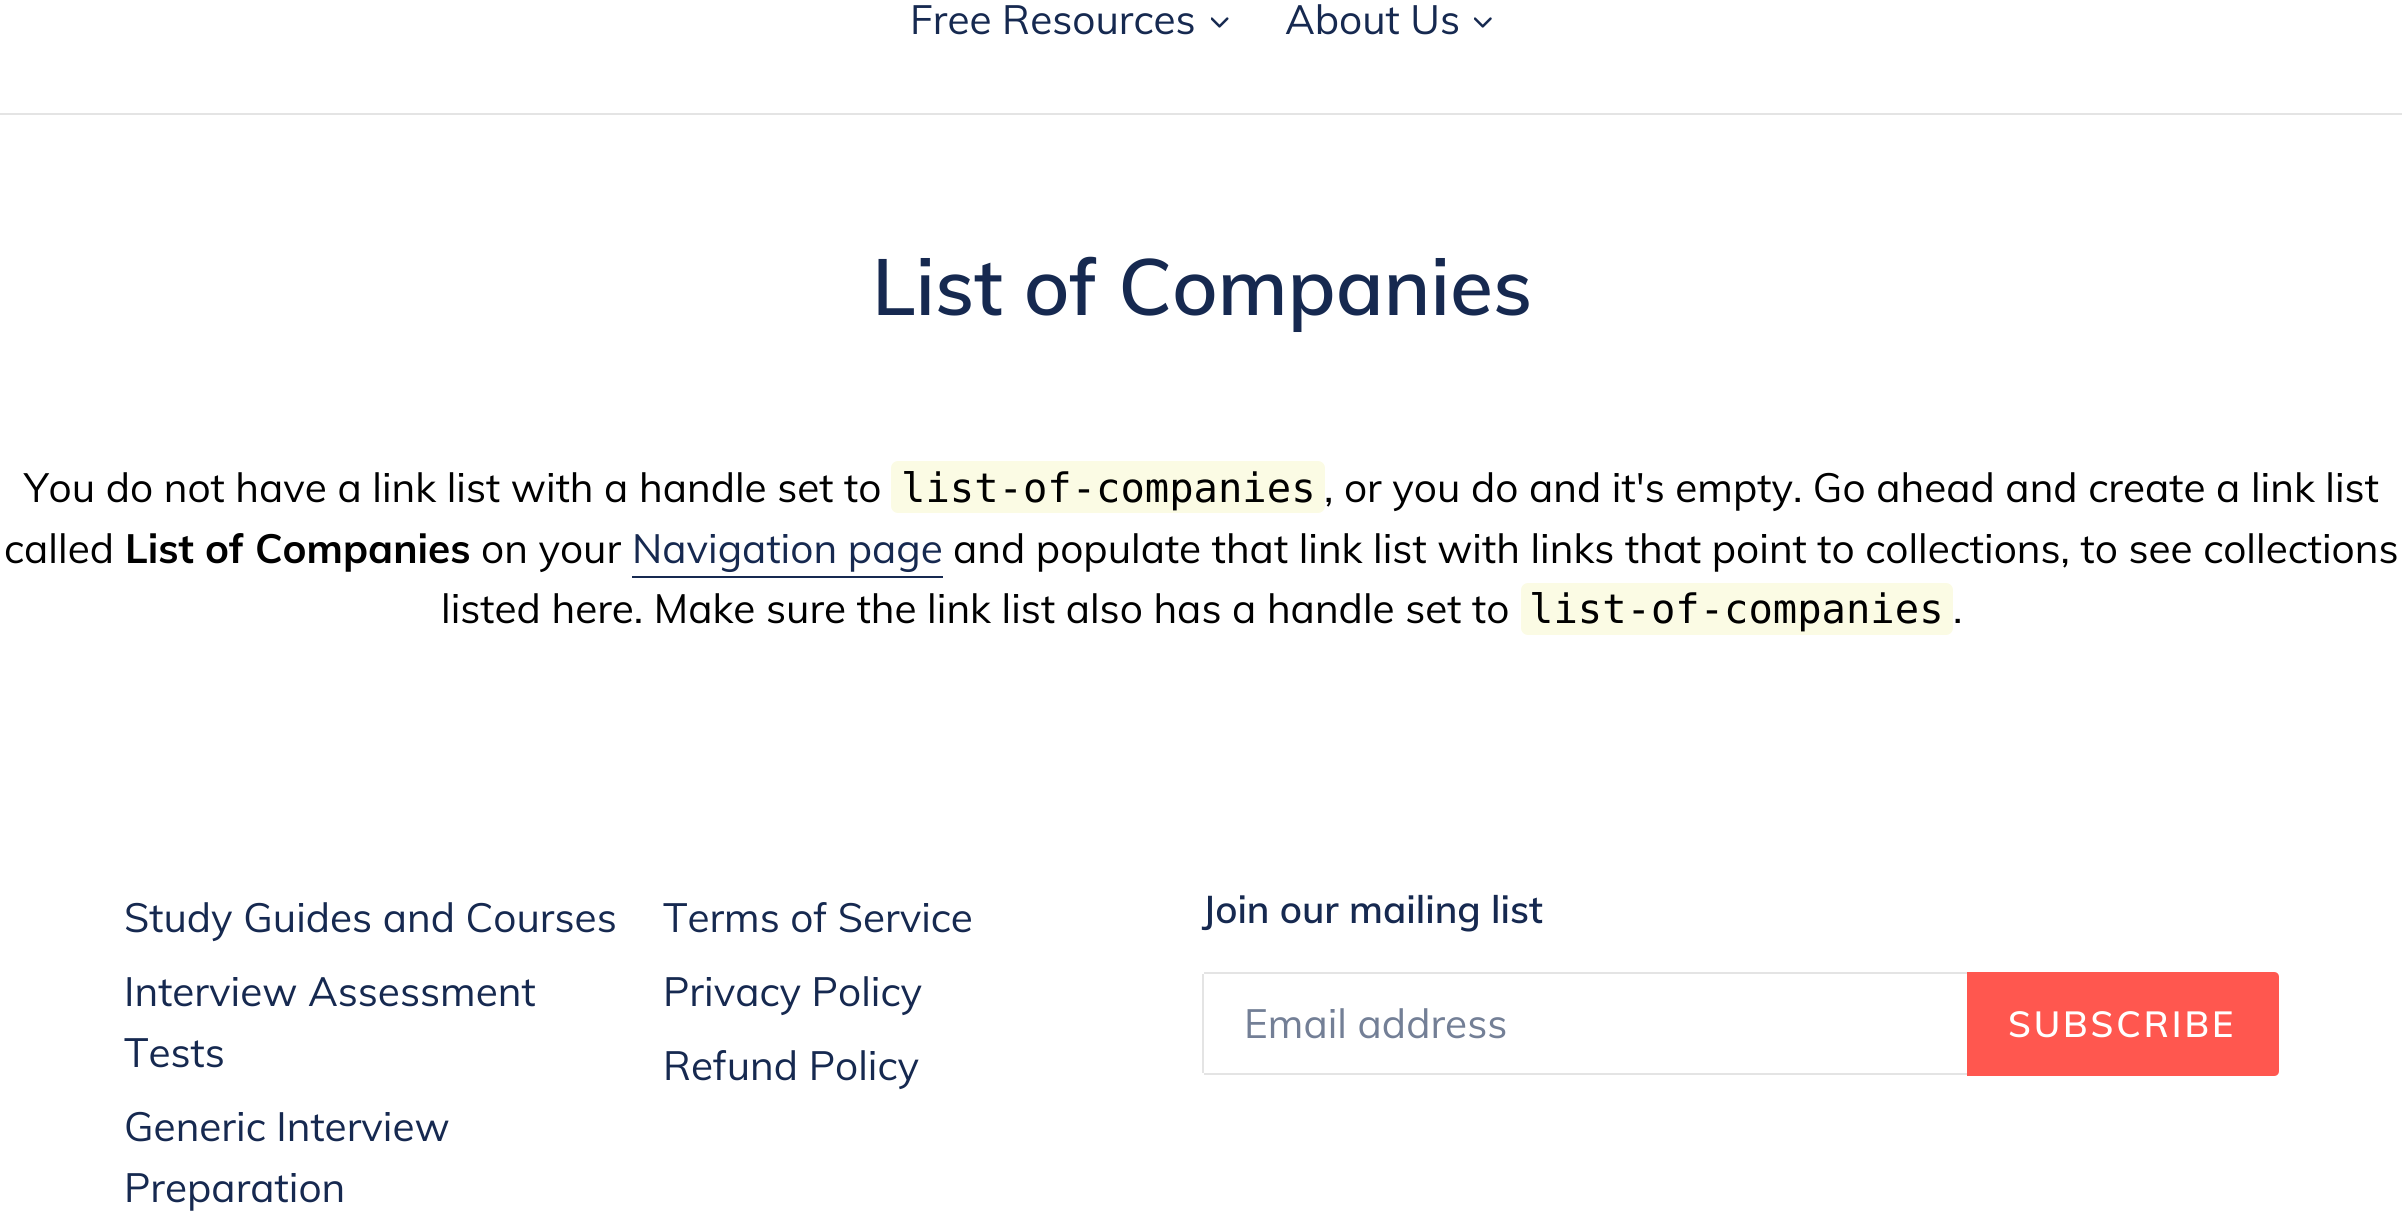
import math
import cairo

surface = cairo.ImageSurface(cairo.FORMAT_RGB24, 2402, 1213)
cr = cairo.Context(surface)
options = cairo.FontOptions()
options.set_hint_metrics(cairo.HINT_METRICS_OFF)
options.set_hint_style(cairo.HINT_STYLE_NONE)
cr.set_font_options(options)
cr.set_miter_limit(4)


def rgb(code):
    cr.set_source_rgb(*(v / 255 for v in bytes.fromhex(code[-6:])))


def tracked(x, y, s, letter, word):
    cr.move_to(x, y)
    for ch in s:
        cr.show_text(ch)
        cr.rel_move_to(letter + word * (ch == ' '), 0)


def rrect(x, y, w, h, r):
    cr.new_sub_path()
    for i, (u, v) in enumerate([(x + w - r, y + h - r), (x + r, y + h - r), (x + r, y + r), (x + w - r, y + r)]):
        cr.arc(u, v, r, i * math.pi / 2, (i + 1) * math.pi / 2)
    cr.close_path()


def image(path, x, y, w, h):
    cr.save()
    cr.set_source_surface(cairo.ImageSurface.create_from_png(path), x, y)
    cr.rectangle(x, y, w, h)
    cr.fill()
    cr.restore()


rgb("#ffffff")
cr.paint()
rgb("#e4e4e4")
cr.rectangle(0, 113, 2402, 2)
cr.fill()
image("img/1.png", 1211, 17, 18, 11)
image("img/2.png", 1474, 17, 18, 11)
rgb("#fbfbe4")
rrect(891, 461, 434, 52, 7)
cr.fill()
rgb("#162950")
cr.rectangle(632, 576, 311, 2)
cr.fill()
rgb("#fbfbe4")
rrect(1521, 583, 432, 52, 7)
cr.fill()
for x, y, w, h, color in [
    (1204, 972, 763, 2, "#e4e4e4"),
    (1204, 1073, 763, 2, "#e4e4e4"),
    (1202, 974, 2, 99, "#e4e4e4"),
]:
    rgb(color)
    cr.rectangle(x, y, w, h)
    cr.fill()
rgb("#ff574f")
cr.new_path()
cr.move_to(1967, 972)
cr.line_to(2274, 972)
cr.curve_to(2277, 972, 2279, 974, 2279, 977)
cr.line_to(2279, 1071)
cr.curve_to(2279, 1074, 2277, 1076, 2274, 1076)
cr.line_to(1967, 1076)
cr.close_path()
cr.fill()
cr.select_font_face("Muli")
cr.set_font_size(40.5)
rgb("#162950")
cr.move_to(910, 34)
cr.show_text("Free Resources")
cr.move_to(1285, 34)
cr.show_text("About Us")
cr.select_font_face("Muli SemiBold")
cr.set_font_size(78.75)
cr.move_to(872, 315)
cr.show_text("List of Companies")
cr.select_font_face("Muli")
cr.set_font_size(40.5)
rgb("#000000")
cr.move_to(24, 502)
cr.show_text("You do not have a link list with a handle set to")
cr.select_font_face("DejaVu Sans Mono")
cr.move_to(901, 502)
cr.show_text("list-of-companies")
cr.select_font_face("Muli")
cr.move_to(1324, 502)
cr.show_text(", or you do and it's empty. Go ahead and create a link list")
cr.move_to(4, 563)
cr.show_text("called")
cr.select_font_face("Muli", cairo.FONT_SLANT_NORMAL, cairo.FONT_WEIGHT_BOLD)
cr.move_to(125, 563)
cr.show_text("List of Companies")
cr.select_font_face("Muli")
cr.move_to(481, 563)
cr.show_text("on your")
rgb("#162950")
cr.move_to(632, 563)
cr.show_text("Navigation page")
rgb("#000000")
cr.move_to(953, 563)
cr.show_text("and populate that link list with links that point to collections, to see collections")
cr.move_to(441, 623)
cr.show_text("listed here. Make sure the link list also has a handle set to")
cr.select_font_face("DejaVu Sans Mono")
cr.move_to(1529, 623)
cr.show_text("list-of-companies")
cr.select_font_face("Muli")
cr.move_to(1953, 623)
cr.show_text(".")
rgb("#162950")
for x, y, s in [
    (124, 932, "Study Guides and Courses"),
    (124, 1006, "Interview Assessment"),
    (124, 1067, "Tests"),
    (124, 1141, "Generic Interview"),
    (124, 1202, "Preparation"),
    (663, 932, "Terms of Service"),
    (663, 1006, "Privacy Policy"),
    (663, 1080, "Refund Policy"),
]:
    cr.move_to(x, y)
    cr.show_text(s)
cr.select_font_face("Muli SemiBold")
cr.set_font_size(38.25)
cr.move_to(1202, 923)
cr.show_text("Join our mailing list")
cr.select_font_face("Muli")
cr.set_font_size(40.5)
rgb("#737f96")
cr.move_to(1244, 1038)
cr.show_text("Email address")
cr.select_font_face("Muli SemiBold")
cr.set_font_size(36)
rgb("#ffffff")
tracked(2008, 1037, "SUBSCRIBE", 2.9, 0)
surface.write_to_png("page.png")
